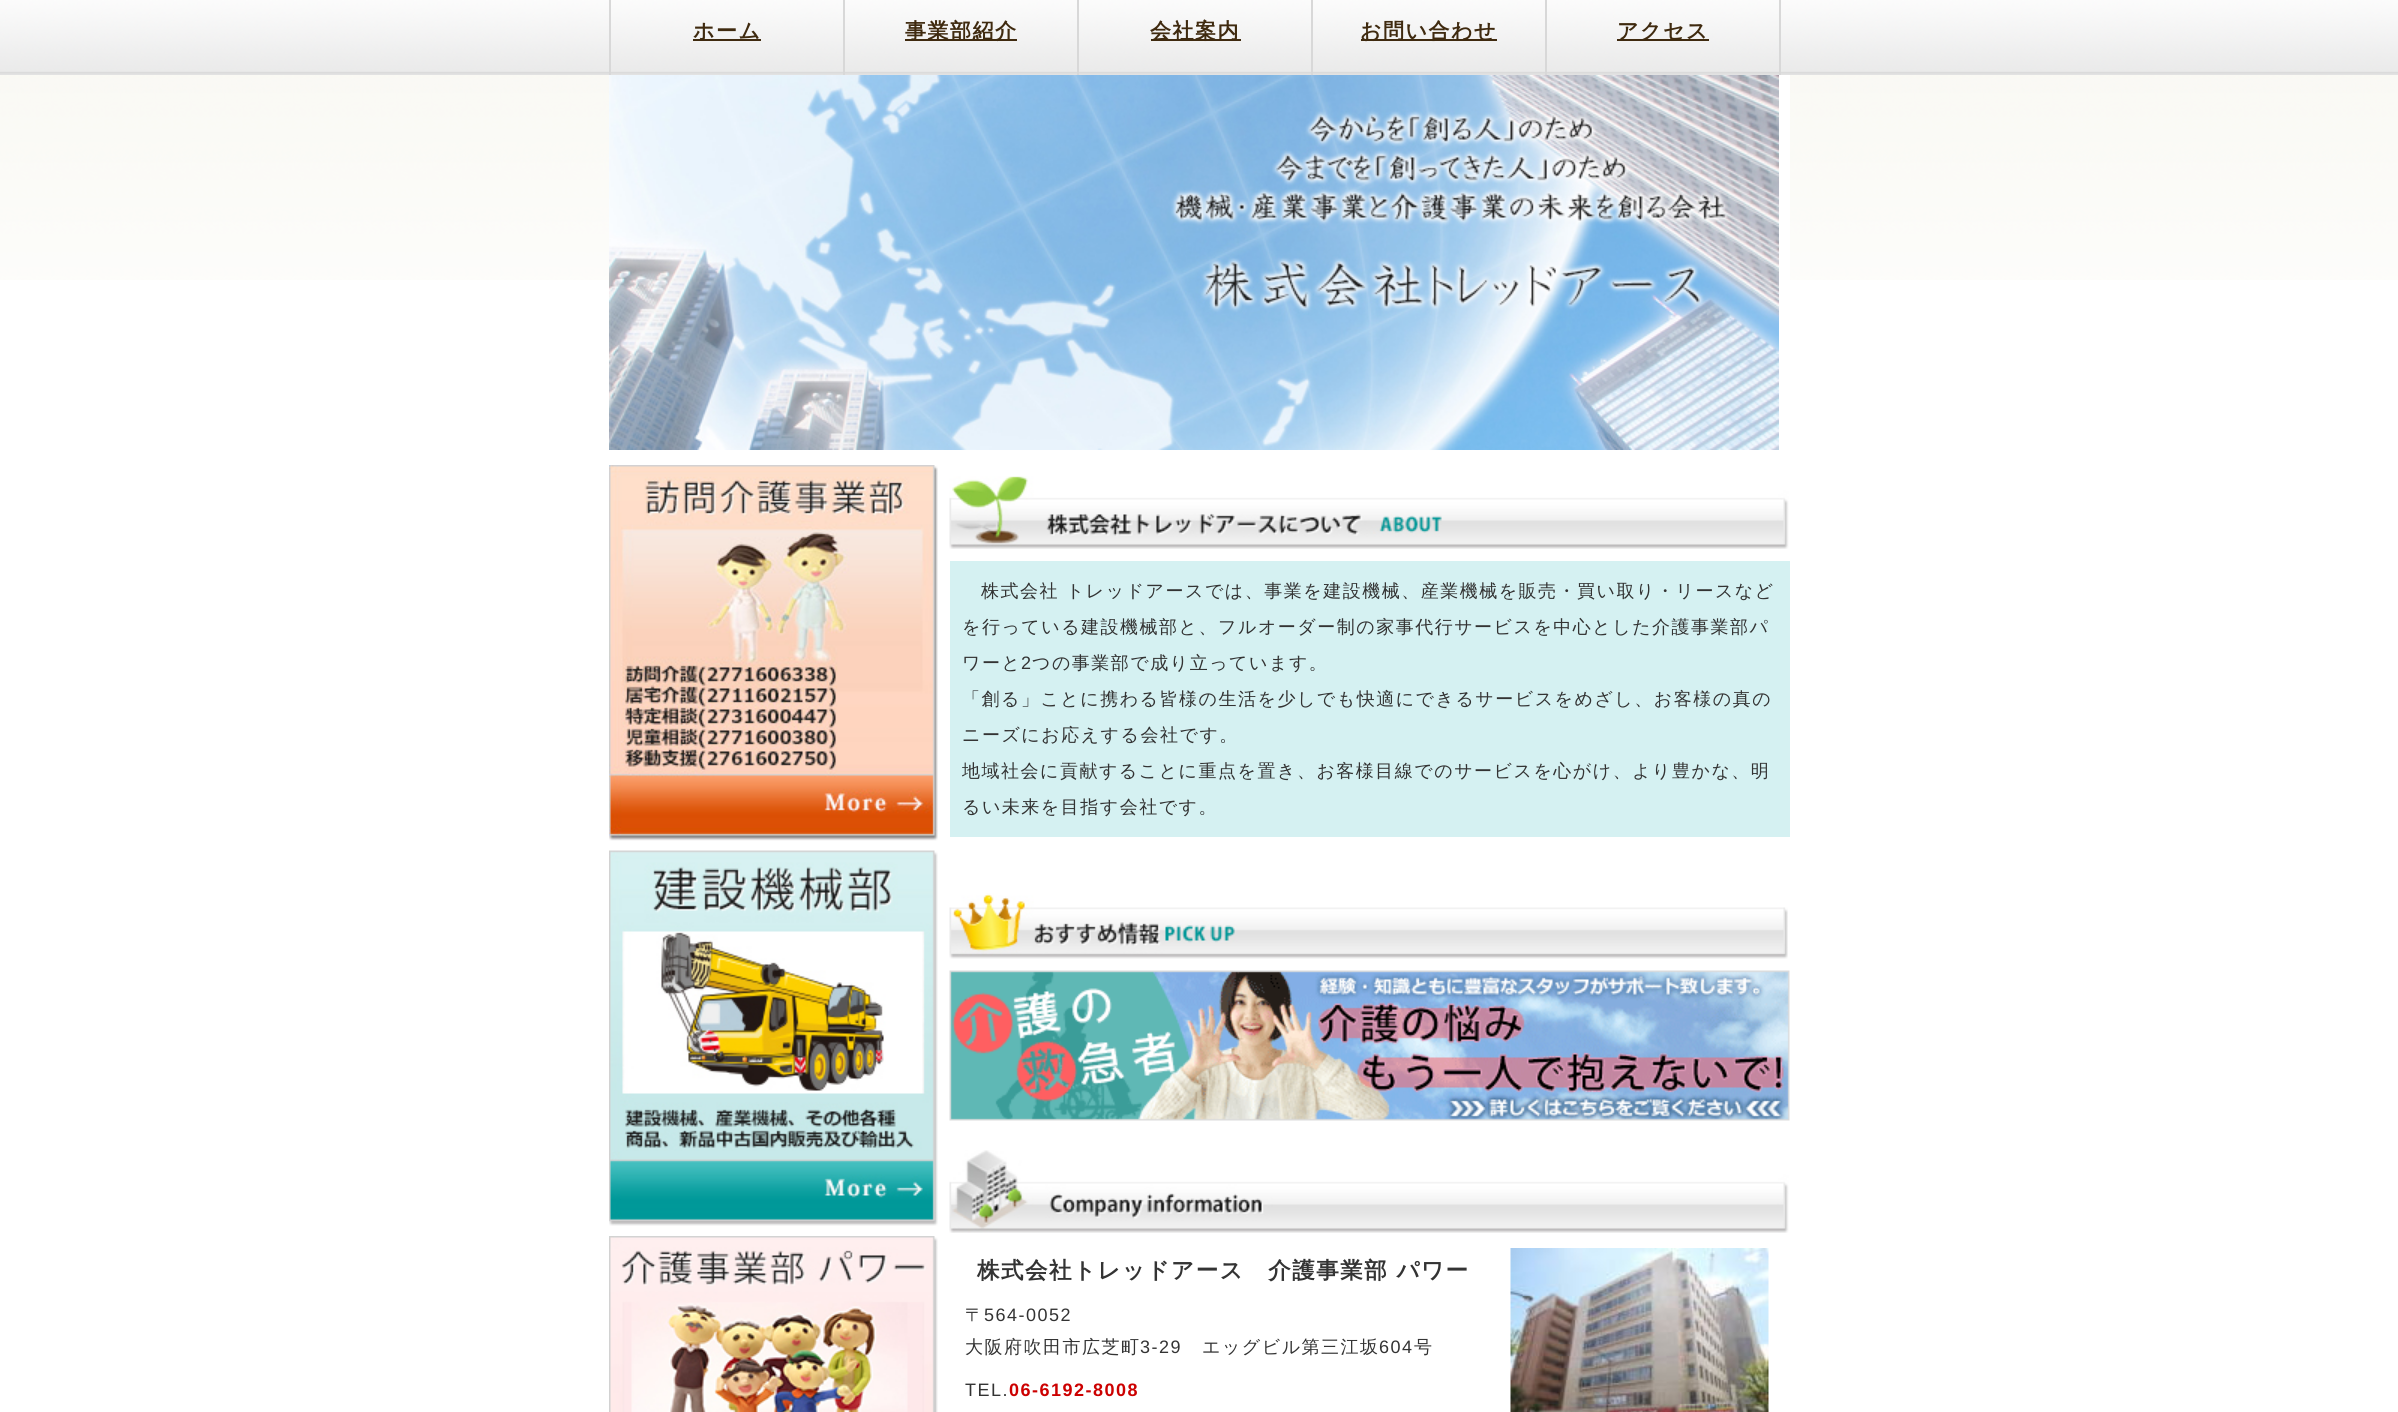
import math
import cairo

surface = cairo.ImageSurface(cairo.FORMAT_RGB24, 2398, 1412)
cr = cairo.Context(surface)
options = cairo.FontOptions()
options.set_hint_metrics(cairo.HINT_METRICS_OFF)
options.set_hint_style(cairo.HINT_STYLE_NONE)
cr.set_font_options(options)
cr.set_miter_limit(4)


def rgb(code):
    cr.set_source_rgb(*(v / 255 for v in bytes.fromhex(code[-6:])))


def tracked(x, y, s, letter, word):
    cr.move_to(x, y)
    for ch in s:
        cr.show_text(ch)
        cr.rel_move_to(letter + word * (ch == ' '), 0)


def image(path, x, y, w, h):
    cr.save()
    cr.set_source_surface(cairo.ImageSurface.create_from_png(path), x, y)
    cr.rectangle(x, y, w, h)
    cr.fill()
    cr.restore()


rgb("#ffffff")
cr.paint()
image("img/1.png", 0, 75, 2398, 205)
image("img/2.png", 0, 0, 2398, 75)
for x, y, w, h, color in [
    (843, 0, 2, 75, "#d8d8d8"),
    (609, 0, 2, 75, "#d8d8d8"),
    (693, 39, 68, 2, "#3f2a0f"),
    (1077, 0, 2, 75, "#d8d8d8"),
    (905, 39, 112, 2, "#3f2a0f"),
    (1311, 0, 2, 75, "#d8d8d8"),
    (1151, 39, 90, 2, "#3f2a0f"),
    (1545, 0, 2, 75, "#d8d8d8"),
    (1361, 39, 136, 2, "#3f2a0f"),
    (1779, 0, 2, 75, "#d8d8d8"),
    (1617, 39, 92, 2, "#3f2a0f"),
    (1779, 75, 11, 205, "#ffffff"),
]:
    rgb(color)
    cr.rectangle(x, y, w, h)
    cr.fill()
image("img/3.png", 609, 75, 1170, 375)
image("img/4.png", 609, 465, 329, 376)
image("img/5.png", 609, 850, 329, 376)
image("img/6.png", 609, 1236, 329, 176)
image("img/7.png", 949, 476, 840, 73)
rgb("#d5f1f2")
cr.rectangle(950, 561, 840, 276)
cr.fill()
image("img/8.png", 949, 893, 839, 66)
image("img/9.png", 949, 970, 841, 151)
image("img/10.png", 949, 1150, 840, 83)
image("img/11.png", 1510, 1248, 259, 164)
cr.select_font_face("WenQuanYi Zen Hei", cairo.FONT_SLANT_NORMAL, cairo.FONT_WEIGHT_BOLD)
cr.set_font_size(21)
rgb("#3f2a0f")
for x, y, s in [
    (693, 38, "ホーム"),
    (905, 38, "事業部紹介"),
    (1150, 38, "会社案内"),
    (1360, 38, "お問い合わせ"),
    (1617, 38, "アクセス"),
]:
    tracked(x, y, s, 1.5, 0)
cr.select_font_face("WenQuanYi Zen Hei Medium")
cr.set_font_size(18)
rgb("#333333")
for x, y, s in [
    (981, 597, "株式会社 トレッドアースでは、事業を建設機械、産業機械を販売・買い取り・リースなど"),
    (962, 633, "を行っている建設機械部と、フルオーダー制の家事代行サービスを中心とした介護事業部パ"),
    (962, 669, "ワーと"),
]:
    tracked(x, y, s, 1.5, 0)
cr.select_font_face("Liberation Sans")
tracked(1021, 669, "2", 1.5, 0)
cr.select_font_face("WenQuanYi Zen Hei Medium")
for x, y, s in [
    (1032, 669, "つの事業部で成り立っています。"),
    (962, 705, "「創る」ことに携わる皆様の生活を少しでも快適にできるサービスをめざし、お客様の真の"),
    (962, 741, "ニーズにお応えする会社です。"),
    (962, 777, "地域社会に貢献することに重点を置き、お客様目線でのサービスを心がけ、より豊かな、明"),
    (962, 813, "るい未来を目指す会社です。"),
]:
    tracked(x, y, s, 1.5, 0)
cr.select_font_face("WenQuanYi Zen Hei", cairo.FONT_SLANT_NORMAL, cairo.FONT_WEIGHT_BOLD)
cr.set_font_size(22.5)
tracked(977, 1278, "株式会社トレッドアース　介護事業部 パワー", 1.5, 0)
cr.select_font_face("WenQuanYi Zen Hei Medium")
cr.set_font_size(18)
tracked(965, 1321, "〒", 1.5, 0)
cr.select_font_face("Liberation Sans")
tracked(984, 1321, "564-0052", 1.5, 0)
cr.select_font_face("WenQuanYi Zen Hei Medium")
tracked(965, 1353, "大阪府吹田市広芝町", 1.5, 0)
cr.select_font_face("Liberation Sans")
tracked(1140, 1353, "3-29", 1.5, 0)
cr.select_font_face("WenQuanYi Zen Hei Medium")
tracked(1202, 1353, "エッグビル第三江坂", 1.5, 0)
cr.select_font_face("Liberation Sans")
tracked(1379, 1353, "604", 1.5, 0)
cr.select_font_face("WenQuanYi Zen Hei Medium")
tracked(1414, 1353, "号", 1.5, 0)
cr.select_font_face("Liberation Sans")
tracked(965, 1396, "TEL.", 1.5, 0)
cr.select_font_face("Liberation Sans", cairo.FONT_SLANT_NORMAL, cairo.FONT_WEIGHT_BOLD)
rgb("#cc0000")
tracked(1009, 1396, "06-6192-8008", 1.5, 0)
surface.write_to_png("page.png")
